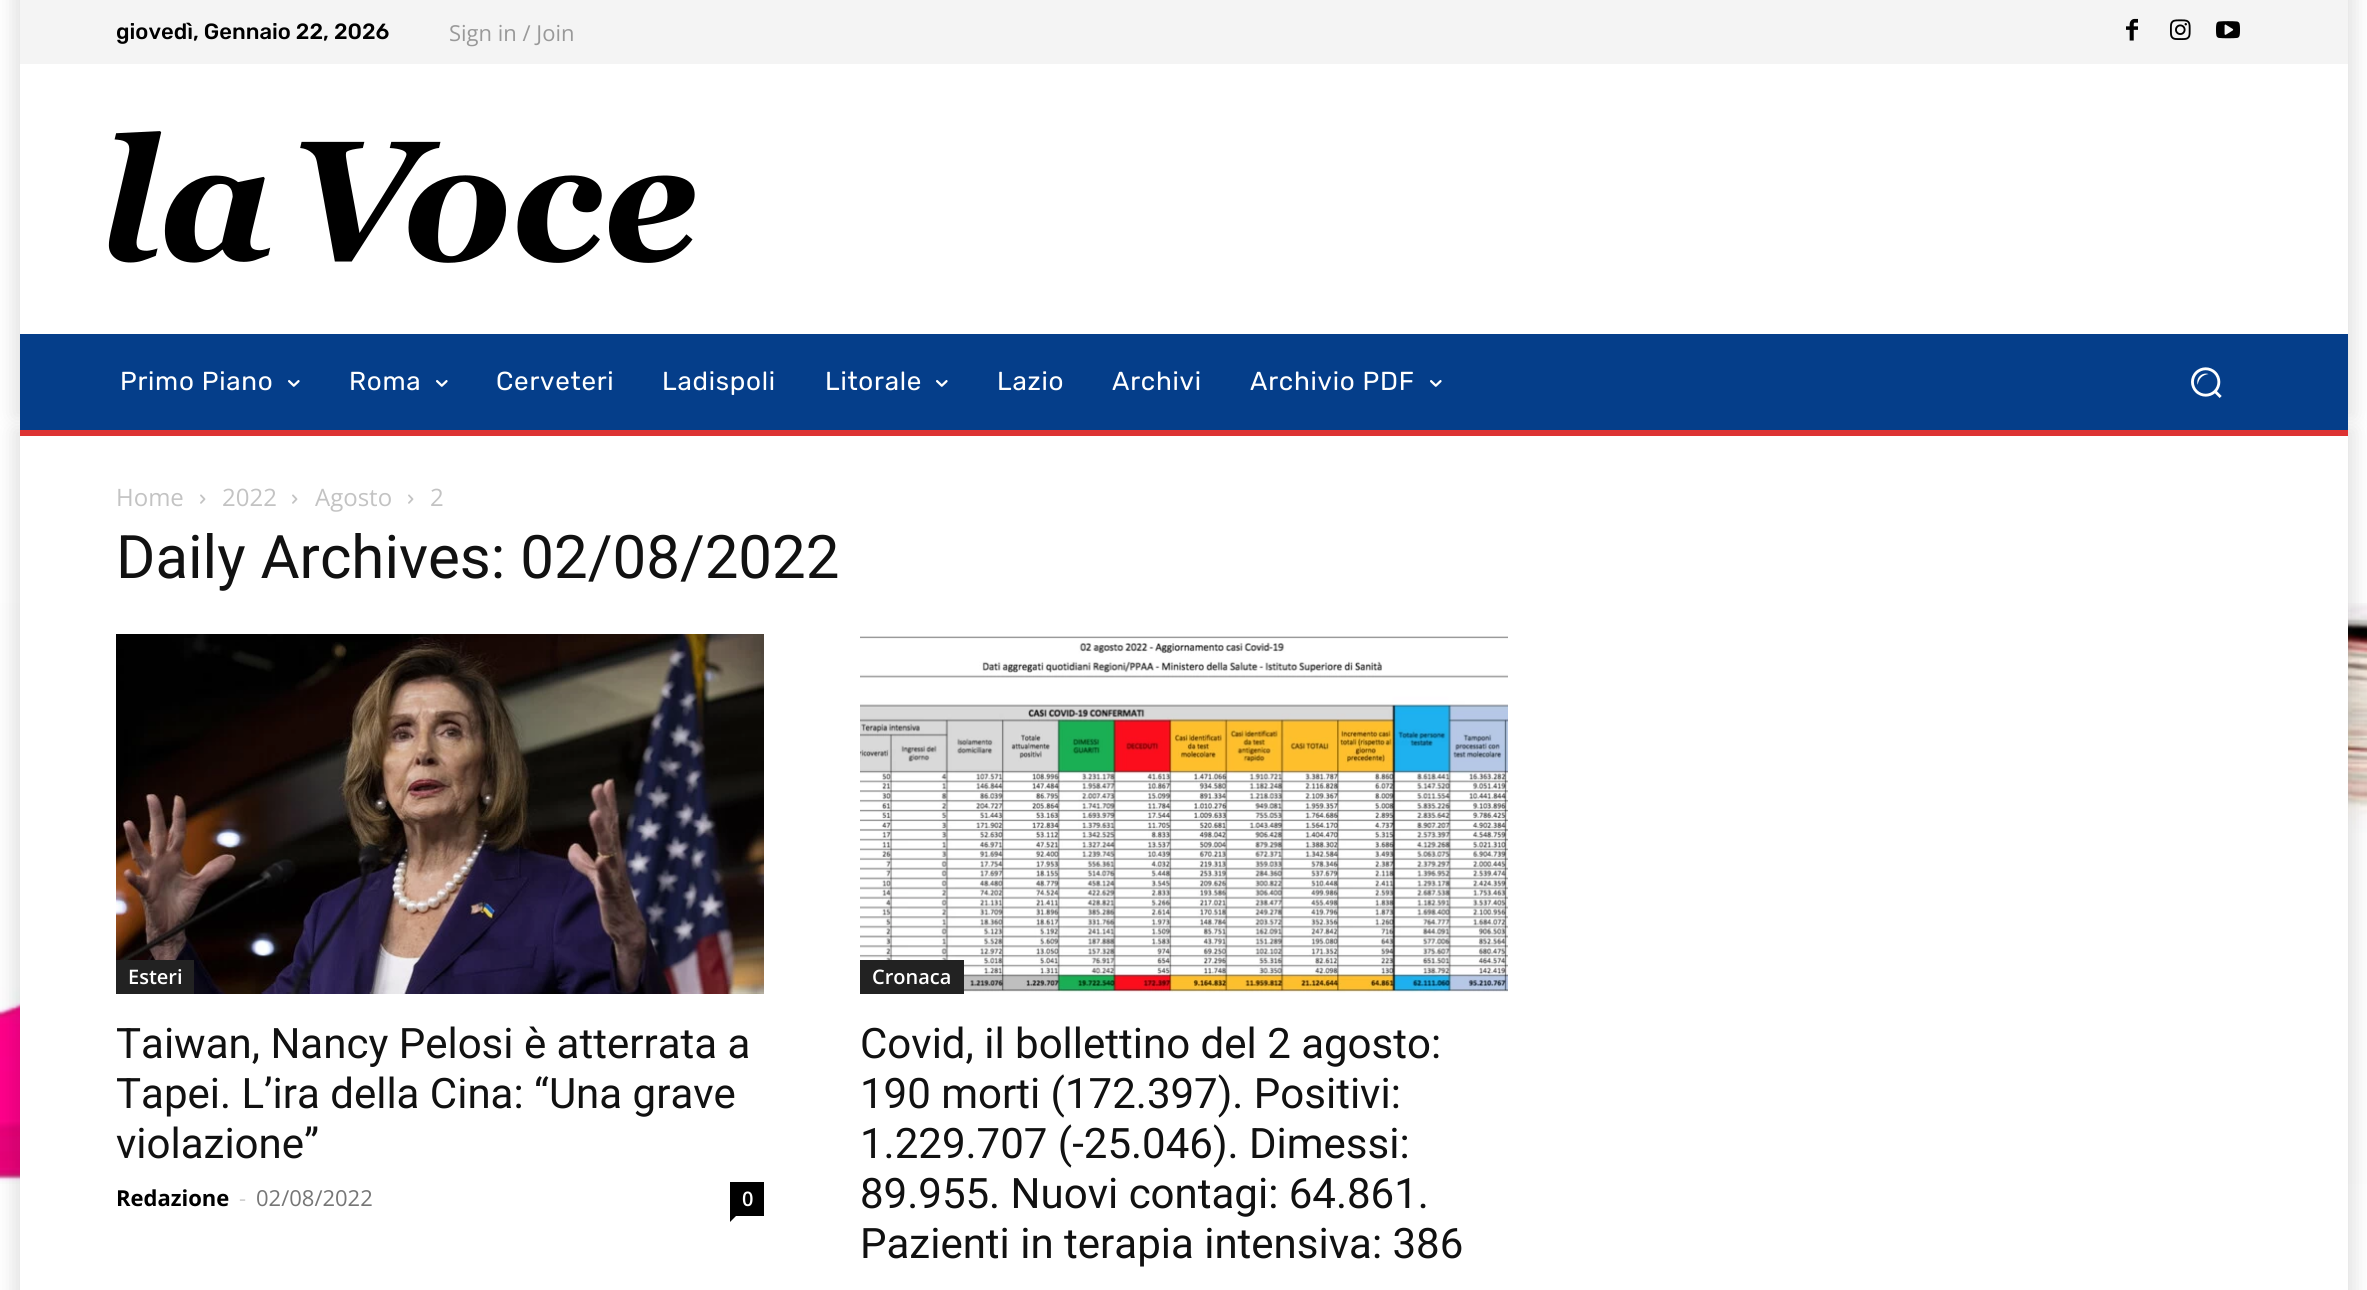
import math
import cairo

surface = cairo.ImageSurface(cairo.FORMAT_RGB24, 2367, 1290)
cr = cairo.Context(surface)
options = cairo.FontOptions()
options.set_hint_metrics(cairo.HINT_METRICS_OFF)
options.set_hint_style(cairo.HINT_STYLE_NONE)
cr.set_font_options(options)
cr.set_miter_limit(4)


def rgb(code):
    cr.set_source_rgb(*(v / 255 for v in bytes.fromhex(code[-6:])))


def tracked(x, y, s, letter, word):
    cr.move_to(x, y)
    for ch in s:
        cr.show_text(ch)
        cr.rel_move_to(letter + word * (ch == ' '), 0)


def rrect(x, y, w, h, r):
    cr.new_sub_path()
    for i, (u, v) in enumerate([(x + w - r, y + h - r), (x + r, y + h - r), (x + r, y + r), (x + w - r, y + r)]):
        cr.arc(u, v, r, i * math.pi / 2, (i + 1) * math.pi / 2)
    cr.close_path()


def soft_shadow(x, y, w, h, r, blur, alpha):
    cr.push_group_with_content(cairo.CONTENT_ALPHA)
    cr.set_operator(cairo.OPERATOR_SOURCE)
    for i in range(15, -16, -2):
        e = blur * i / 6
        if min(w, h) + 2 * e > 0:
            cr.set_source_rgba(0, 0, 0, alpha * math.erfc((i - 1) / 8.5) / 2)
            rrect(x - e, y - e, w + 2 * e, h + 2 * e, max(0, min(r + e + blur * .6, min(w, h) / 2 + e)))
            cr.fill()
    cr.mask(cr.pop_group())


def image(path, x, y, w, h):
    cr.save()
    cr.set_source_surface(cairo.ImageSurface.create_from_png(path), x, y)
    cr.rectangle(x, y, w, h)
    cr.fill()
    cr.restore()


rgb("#ffffff")
cr.paint()
image("img/1.png", 0, 603, 2367, 581)
rgb("#000000")
soft_shadow(14, 430, 2340, 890, 0, 10, 0.12)
rgb("#ffffff")
cr.rectangle(20, 436, 2328, 854)
cr.fill()
rgb("#000000")
soft_shadow(14, -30, 2340, 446, 0, 10, 0.12)
rgb("#f4f4f4")
cr.rectangle(20, 0, 2328, 64)
cr.fill()
image("img/2.png", 2126, 18, 12, 23)
image("img/3.png", 2170, 19, 21, 21)
image("img/4.png", 2216, 21, 24, 18)
rgb("#ffffff")
cr.rectangle(20, 64, 2328, 270)
cr.fill()
image("img/5.png", 108, 131, 587, 132)
rgb("#053e8a")
cr.rectangle(20, 334, 2328, 96)
cr.fill()
image("img/6.png", 288, 380, 12, 7)
image("img/6.png", 436, 380, 12, 7)
image("img/6.png", 936, 380, 12, 7)
image("img/6.png", 1430, 380, 12, 7)
image("img/7.png", 2191, 367, 31, 31)
rgb("#dd3333")
cr.rectangle(20, 430, 2328, 6)
cr.fill()
image("img/8.png", 200, 494, 6, 10)
image("img/8.png", 292, 494, 6, 10)
image("img/8.png", 408, 494, 6, 10)
image("img/9.png", 116, 634, 648, 360)
rgb("#222222")
cr.rectangle(116, 960, 78, 34)
cr.fill()
rgb("#000000")
cr.rectangle(730, 1182, 34, 34)
cr.fill()
cr.new_path()
cr.move_to(730, 1216)
cr.line_to(736, 1216)
cr.line_to(730, 1222)
cr.close_path()
cr.fill()
image("img/10.png", 860, 636, 648, 357)
rgb("#222222")
cr.rectangle(860, 960, 104, 34)
cr.fill()
cr.select_font_face("Rubik Medium")
cr.set_font_size(22)
rgb("#000000")
cr.move_to(116, 39)
cr.show_text("giovedì, Gennaio 22, 2026")
cr.select_font_face("Open Sans")
rgb("#999999")
cr.move_to(449, 41)
cr.show_text("Sign in / Join")
cr.select_font_face("Rubik")
cr.set_font_size(26)
rgb("#ffffff")
for x, y, s in [
    (120, 390, "Primo Piano"),
    (349, 390, "Roma"),
    (496, 390, "Cerveteri"),
    (662, 390, "Ladispoli"),
    (825, 390, "Litorale"),
    (997, 390, "Lazio"),
    (1112, 390, "Archivi"),
    (1250, 390, "Archivio PDF"),
]:
    tracked(x, y, s, 0.75, 0)
cr.select_font_face("Open Sans")
cr.set_font_size(24)
rgb("#c3c3c3")
for x, y, s in [
    (116, 506, "Home"),
    (222, 506, "2022"),
    (315, 506, "Agosto"),
    (430, 506, "2"),
]:
    cr.move_to(x, y)
    cr.show_text(s)
cr.select_font_face("Roboto")
cr.set_font_size(60)
rgb("#111111")
cr.move_to(116, 578)
cr.show_text("Daily Archives: 02/08/2022")
cr.select_font_face("Open Sans SemiBold")
cr.set_font_size(20)
rgb("#ffffff")
cr.move_to(128, 984)
cr.show_text("Esteri")
cr.select_font_face("Roboto")
cr.set_font_size(42)
rgb("#111111")
for x, y, s in [
    (116, 1058, "Taiwan, Nancy Pelosi è atterrata a"),
    (116, 1108, "Tapei. L’ira della Cina: “Una grave"),
    (116, 1158, "violazione”"),
]:
    cr.move_to(x, y)
    cr.show_text(s)
cr.select_font_face("Open Sans", cairo.FONT_SLANT_NORMAL, cairo.FONT_WEIGHT_BOLD)
cr.set_font_size(22)
rgb("#000000")
cr.move_to(116, 1206)
cr.show_text("Redazione")
cr.select_font_face("Open Sans")
rgb("#cccccc")
cr.move_to(239, 1206)
cr.show_text("-")
rgb("#767676")
cr.move_to(256, 1206)
cr.show_text("02/08/2022")
cr.select_font_face("Open Sans SemiBold")
cr.set_font_size(20)
rgb("#ffffff")
cr.move_to(742, 1206)
cr.show_text("0")
cr.move_to(872, 984)
cr.show_text("Cronaca")
cr.select_font_face("Roboto")
cr.set_font_size(42)
rgb("#111111")
for x, y, s in [
    (860, 1058, "Covid, il bollettino del 2 agosto:"),
    (860, 1108, "190 morti (172.397). Positivi:"),
    (860, 1158, "1.229.707 (-25.046). Dimessi:"),
    (860, 1208, "89.955. Nuovi contagi: 64.861."),
    (860, 1258, "Pazienti in terapia intensiva: 386"),
]:
    cr.move_to(x, y)
    cr.show_text(s)
surface.write_to_png("page.png")
